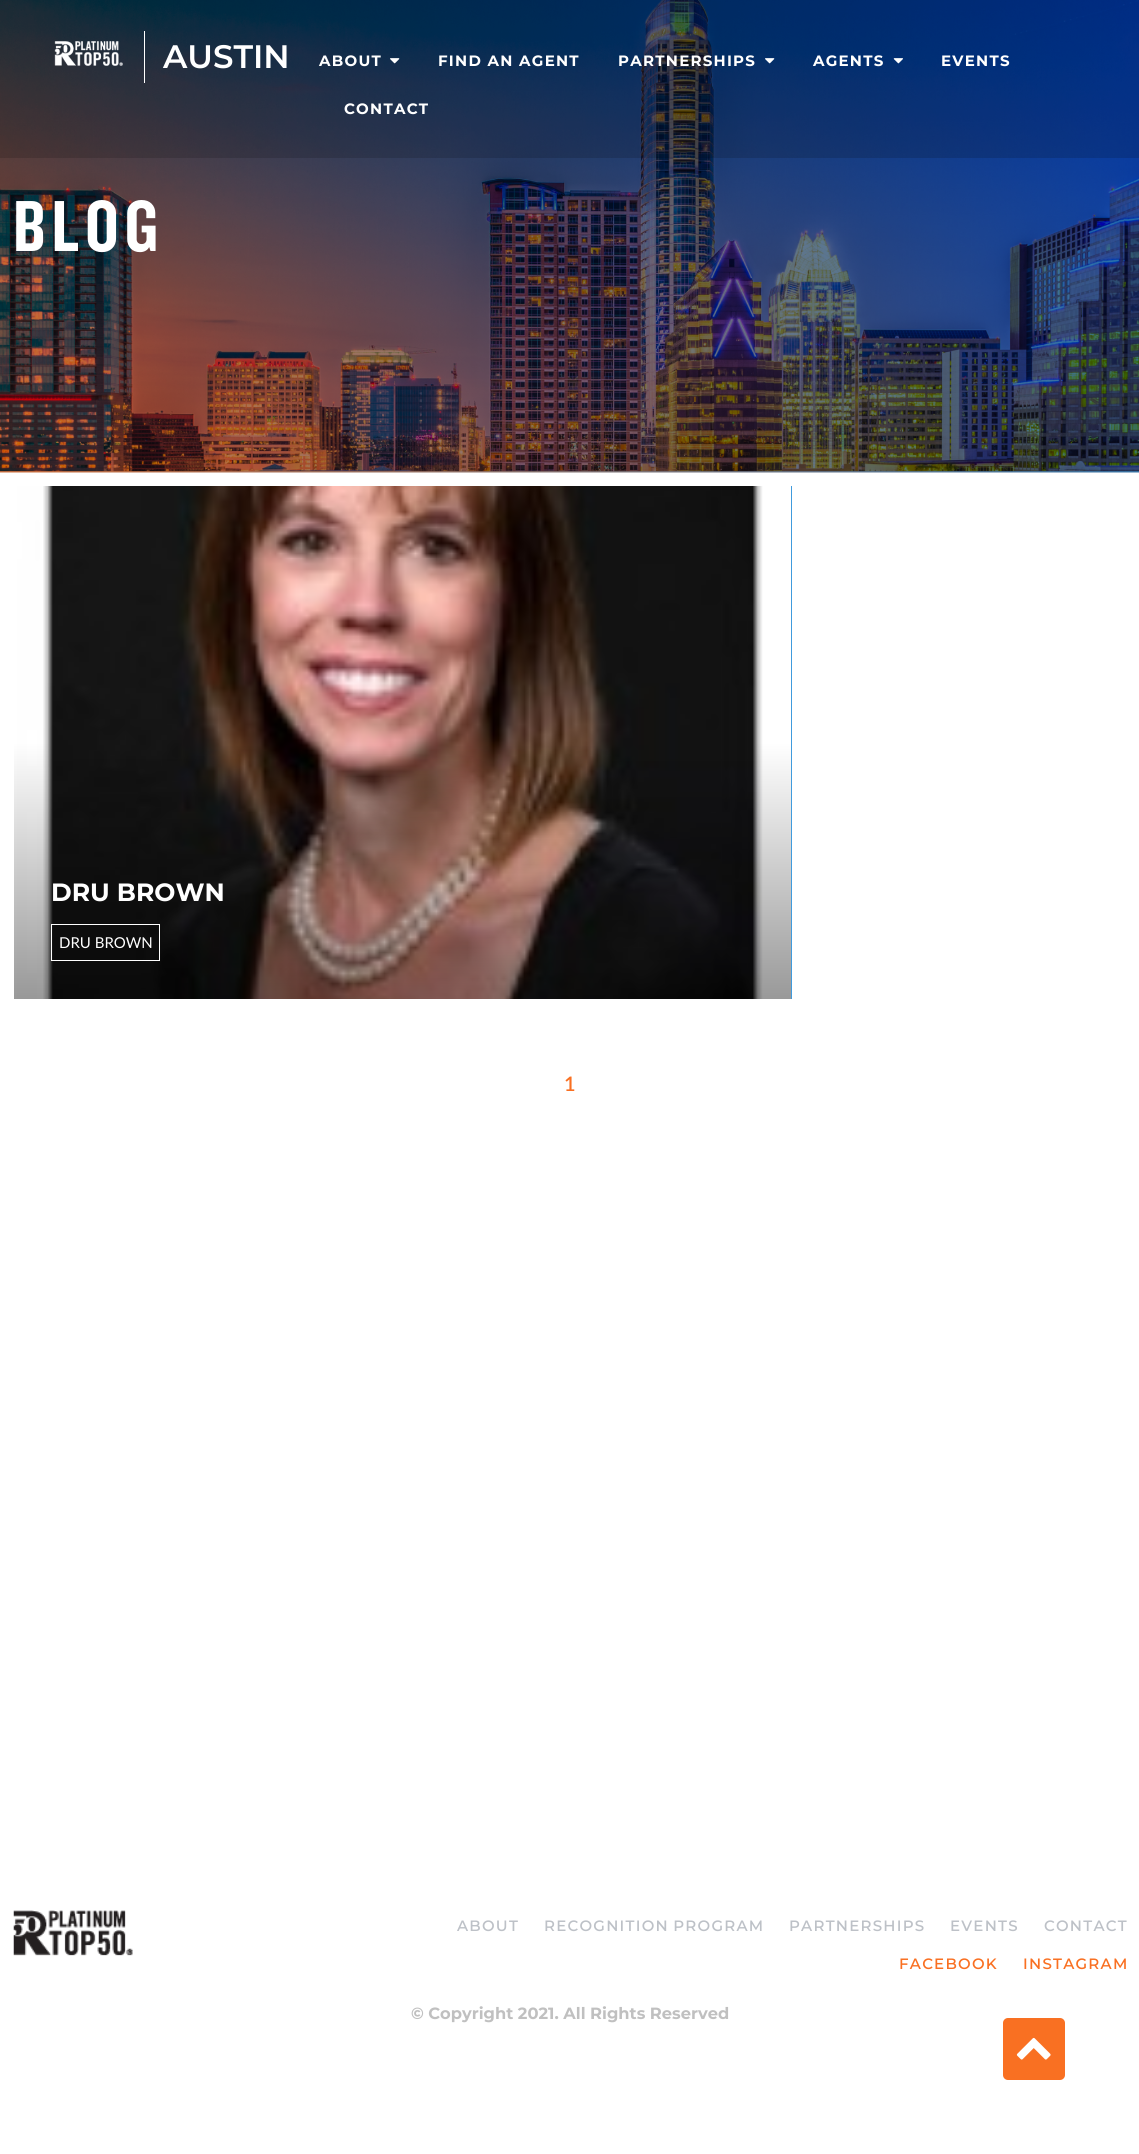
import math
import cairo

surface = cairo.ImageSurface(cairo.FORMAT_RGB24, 1139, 2154)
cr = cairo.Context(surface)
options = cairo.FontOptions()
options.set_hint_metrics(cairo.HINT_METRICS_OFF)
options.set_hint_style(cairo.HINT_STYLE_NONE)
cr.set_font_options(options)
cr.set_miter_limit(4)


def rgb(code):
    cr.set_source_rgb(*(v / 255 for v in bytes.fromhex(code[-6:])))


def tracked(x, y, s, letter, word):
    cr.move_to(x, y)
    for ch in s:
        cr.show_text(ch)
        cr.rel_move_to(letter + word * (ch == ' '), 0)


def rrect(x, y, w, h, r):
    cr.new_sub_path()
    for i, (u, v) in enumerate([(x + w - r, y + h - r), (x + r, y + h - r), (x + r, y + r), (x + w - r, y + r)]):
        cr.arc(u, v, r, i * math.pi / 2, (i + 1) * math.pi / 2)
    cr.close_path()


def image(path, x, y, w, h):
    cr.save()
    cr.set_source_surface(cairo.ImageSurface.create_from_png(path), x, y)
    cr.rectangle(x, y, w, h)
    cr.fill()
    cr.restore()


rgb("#ffffff")
cr.paint()
image("img/5.png", 0, 0, 1139, 473)
cr.set_source_rgba(0.004, 0.004, 0.004, 0.15)
cr.rectangle(0, 0, 1139, 158)
cr.fill()
image("img/1.png", 54, 41, 69, 25)
rgb("#ffffff")
cr.rectangle(144, 31, 1, 52)
cr.fill()
image("img/2.png", 390, 58, 10, 6)
image("img/3.png", 765, 58, 10, 6)
image("img/4.png", 893, 58, 10, 6)
rgb("#007ad2")
cr.rectangle(791, 486, 1, 513)
cr.fill()
image("img/6.png", 14, 486, 778, 513)
cr.rectangle(51.5, 924.5, 108, 36)
rgb("#ffffff")
cr.set_line_width(1)
cr.stroke()
image("img/7.png", 13, 1910, 120, 46)
rgb("#f97022")
rrect(1003, 2018, 62, 62, 5)
cr.fill()
image("img/8.png", 1016, 2037, 35, 23)
cr.select_font_face("Montserrat SemiBold")
cr.set_font_size(32.5)
rgb("#ffffff")
cr.move_to(163, 68)
cr.show_text("AUSTIN")
cr.select_font_face("Montserrat", cairo.FONT_SLANT_NORMAL, cairo.FONT_WEIGHT_BOLD)
cr.set_font_size(15)
for x, y, s in [
    (319, 66, "ABOUT"),
    (438, 66, "FIND AN AGENT"),
    (618, 66, "PARTNERSHIPS"),
    (813, 66, "AGENTS"),
    (941, 66, "EVENTS"),
    (344, 114, "CONTACT"),
]:
    tracked(x, y, s, 1.25, 0)
cr.select_font_face("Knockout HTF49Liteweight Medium")
cr.set_font_size(75)
tracked(13, 251, "BLOG", 6, 0)
cr.select_font_face("Montserrat", cairo.FONT_SLANT_NORMAL, cairo.FONT_WEIGHT_BOLD)
cr.set_font_size(25)
cr.move_to(51, 901)
cr.show_text("DRU BROWN")
cr.select_font_face("Lato")
cr.set_font_size(15)
cr.move_to(59, 948)
cr.show_text("DRU BROWN")
cr.select_font_face("Lato SemiBold")
cr.set_font_size(20)
rgb("#f97022")
cr.move_to(564, 1091)
cr.show_text("1")
cr.select_font_face("Montserrat Medium")
cr.set_font_size(15)
rgb("#bdc1c7")
tracked(457, 1931, "ABOUT", 1.25, 0)
tracked(544, 1931, "RECOGNITION PROGRAM", 1.25, -1)
for x, y, s in [
    (789, 1931, "PARTNERSHIPS"),
    (950, 1931, "EVENTS"),
    (1044, 1931, "CONTACT"),
]:
    tracked(x, y, s, 1.25, 0)
rgb("#f97022")
tracked(899, 1969, "FACEBOOK", 1.25, 0)
tracked(1023, 1969, "INSTAGRAM", 1.25, 0)
cr.select_font_face("Montserrat", cairo.FONT_SLANT_NORMAL, cairo.FONT_WEIGHT_BOLD)
cr.set_font_size(16.25)
rgb("#c0c0c0")
cr.move_to(411, 2019)
cr.show_text("© Copyright 2021. All Rights Reserved")
surface.write_to_png("page.png")
